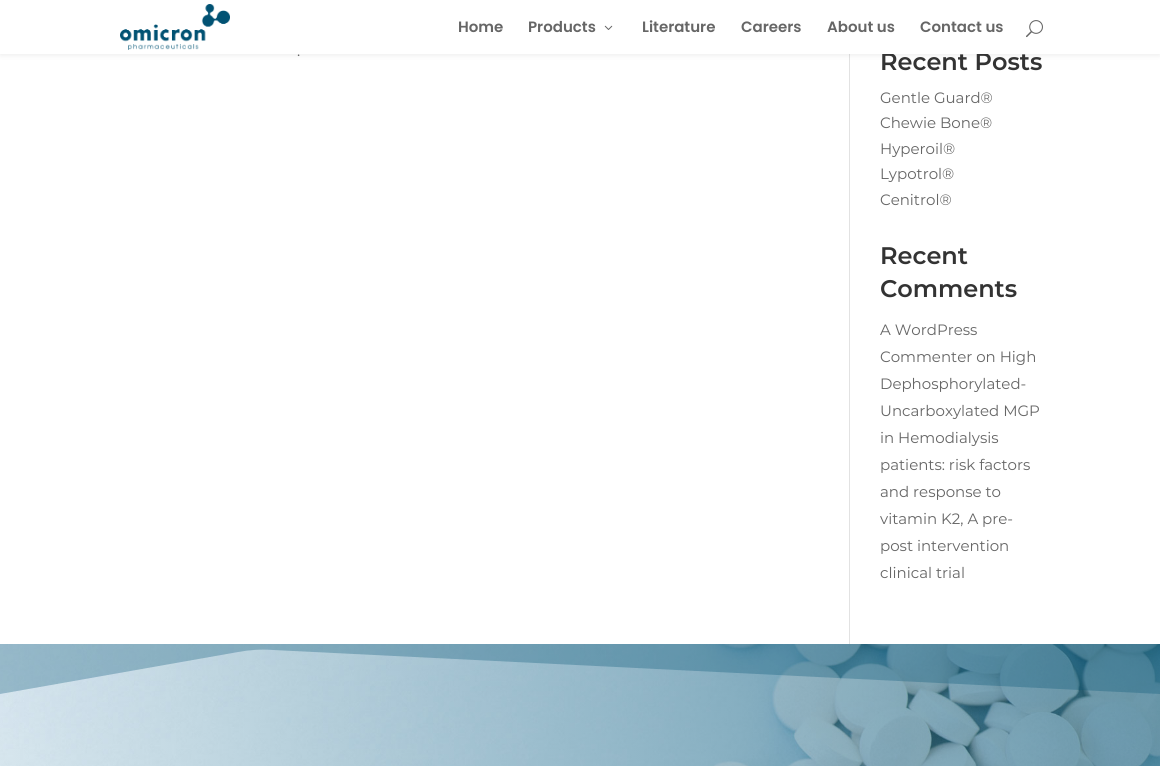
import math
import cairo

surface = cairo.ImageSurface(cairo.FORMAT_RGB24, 1160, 766)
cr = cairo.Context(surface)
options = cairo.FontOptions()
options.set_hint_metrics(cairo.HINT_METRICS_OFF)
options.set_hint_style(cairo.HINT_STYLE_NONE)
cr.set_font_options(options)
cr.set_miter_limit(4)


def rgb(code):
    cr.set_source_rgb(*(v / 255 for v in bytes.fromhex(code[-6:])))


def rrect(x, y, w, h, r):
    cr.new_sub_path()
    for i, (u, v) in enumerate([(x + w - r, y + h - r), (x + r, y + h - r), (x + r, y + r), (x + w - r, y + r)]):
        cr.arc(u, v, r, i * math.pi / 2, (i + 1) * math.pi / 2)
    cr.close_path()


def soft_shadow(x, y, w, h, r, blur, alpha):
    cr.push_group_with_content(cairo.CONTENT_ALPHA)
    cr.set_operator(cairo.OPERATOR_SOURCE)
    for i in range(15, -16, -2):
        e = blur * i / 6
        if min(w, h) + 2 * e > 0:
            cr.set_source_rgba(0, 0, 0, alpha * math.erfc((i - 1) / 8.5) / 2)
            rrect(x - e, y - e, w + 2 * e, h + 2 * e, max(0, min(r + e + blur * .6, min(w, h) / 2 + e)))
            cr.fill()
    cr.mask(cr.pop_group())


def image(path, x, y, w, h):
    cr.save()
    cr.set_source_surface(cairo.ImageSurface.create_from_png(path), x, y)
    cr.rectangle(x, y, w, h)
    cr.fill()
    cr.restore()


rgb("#ffffff")
cr.paint()
rgb("#e2e2e2")
cr.rectangle(849, 54, 1, 590)
cr.fill()
rgb("#000000")
soft_shadow(0, 0, 1160, 54, 0, 3.5, 0.1)
image("img/4.png", 0, 644, 1160, 122)
cr.set_source_rgba(0.004, 0.322, 0.451, 0.3)
cr.new_path()
cr.move_to(0, 694)
cr.line_to(238, 652)
cr.curve_to(249, 650, 261, 649, 273, 650)
cr.line_to(1160, 694)
cr.line_to(1160, 644)
cr.line_to(0, 644)
cr.close_path()
cr.fill()
cr.select_font_face("Montserrat")
cr.set_font_size(15)
rgb("#666666")
cr.move_to(297, 56)
cr.show_text(".")
cr.select_font_face("Montserrat SemiBold")
cr.set_font_size(24)
rgb("#333333")
cr.move_to(880, 70)
cr.show_text("Recent Posts")
rgb("#ffffff")
cr.rectangle(0, 0, 1160, 54)
cr.fill()
image("img/3.png", 1026, 20, 17, 18)
cr.select_font_face("Poppins SemiBold")
cr.set_font_size(15)
rgb("#666666")
for x, y, s in [
    (920, 32, "Contact us"),
    (827, 32, "About us"),
    (741, 32, "Careers"),
    (642, 32, "Literature"),
]:
    cr.move_to(x, y)
    cr.show_text(s)
image("img/2.png", 604, 25, 9, 5)
cr.move_to(528, 32)
cr.show_text("Products")
cr.move_to(458, 32)
cr.show_text("Home")
image("img/1.png", 120, 4, 110, 46)
cr.select_font_face("Montserrat")
for x, y, s in [
    (880, 103, "Gentle Guard®"),
    (880, 128, "Chewie Bone®"),
    (880, 154, "Hyperoil®"),
    (880, 179, "Lypotrol®"),
    (880, 205, "Cenitrol®"),
]:
    cr.move_to(x, y)
    cr.show_text(s)
cr.select_font_face("Montserrat SemiBold")
cr.set_font_size(24)
rgb("#333333")
cr.move_to(880, 264)
cr.show_text("Recent")
cr.move_to(880, 297)
cr.show_text("Comments")
cr.select_font_face("Montserrat")
cr.set_font_size(15)
rgb("#666666")
for x, y, s in [
    (880, 335, "A WordPress"),
    (880, 362, "Commenter on High"),
    (880, 389, "Dephosphorylated-"),
    (880, 416, "Uncarboxylated MGP"),
    (880, 443, "in Hemodialysis"),
    (880, 470, "patients: risk factors"),
    (880, 497, "and response to"),
    (880, 524, "vitamin K2, A pre-"),
    (880, 551, "post intervention"),
    (880, 578, "clinical trial"),
]:
    cr.move_to(x, y)
    cr.show_text(s)
surface.write_to_png("page.png")
